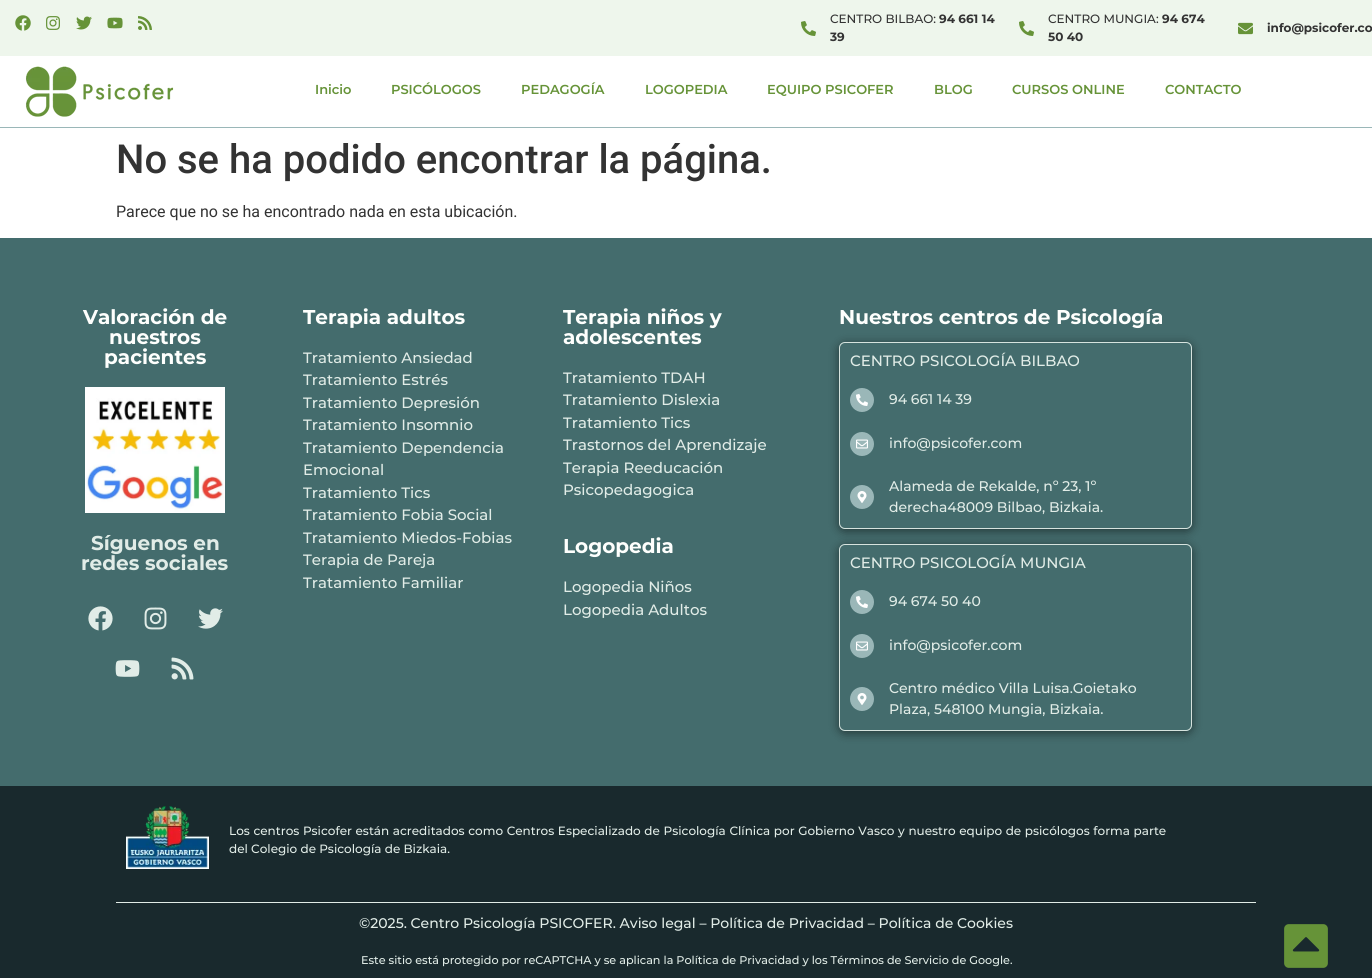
import math
import cairo

surface = cairo.ImageSurface(cairo.FORMAT_RGB24, 1372, 978)
cr = cairo.Context(surface)
options = cairo.FontOptions()
options.set_hint_metrics(cairo.HINT_METRICS_OFF)
options.set_hint_style(cairo.HINT_STYLE_NONE)
cr.set_font_options(options)
cr.set_miter_limit(4)


def rgb(code):
    cr.set_source_rgb(*(v / 255 for v in bytes.fromhex(code[-6:])))


def tracked(x, y, s, letter, word):
    cr.move_to(x, y)
    for ch in s:
        cr.show_text(ch)
        cr.rel_move_to(letter + word * (ch == ' '), 0)


def rrect(x, y, w, h, r):
    cr.new_sub_path()
    for i, (u, v) in enumerate([(x + w - r, y + h - r), (x + r, y + h - r), (x + r, y + r), (x + w - r, y + r)]):
        cr.arc(u, v, r, i * math.pi / 2, (i + 1) * math.pi / 2)
    cr.close_path()


def soft_shadow(x, y, w, h, r, blur, alpha):
    cr.push_group_with_content(cairo.CONTENT_ALPHA)
    cr.set_operator(cairo.OPERATOR_SOURCE)
    for i in range(15, -16, -2):
        e = blur * i / 6
        if min(w, h) + 2 * e > 0:
            cr.set_source_rgba(0, 0, 0, alpha * math.erfc((i - 1) / 8.5) / 2)
            rrect(x - e, y - e, w + 2 * e, h + 2 * e, max(0, min(r + e + blur * .6, min(w, h) / 2 + e)))
            cr.fill()
    cr.mask(cr.pop_group())


def image(path, x, y, w, h):
    cr.save()
    cr.set_source_surface(cairo.ImageSurface.create_from_png(path), x, y)
    cr.rectangle(x, y, w, h)
    cr.fill()
    cr.restore()


rgb("#ffffff")
cr.paint()
rgb("#eef6ec")
cr.rectangle(0, 0, 1372, 56)
cr.fill()
image("img/1.png", 15, 15, 16, 16)
image("img/2.png", 46, 16, 14, 14)
image("img/3.png", 76, 16, 16, 14)
image("img/4.png", 107, 17, 16, 12)
image("img/5.png", 138, 16, 14, 14)
image("img/6.png", 801, 21, 15, 15)
image("img/6.png", 1019, 21, 15, 15)
image("img/7.png", 1238, 22, 15, 13)
rgb("#9ab7b8")
cr.rectangle(0, 127, 1372, 1)
cr.fill()
image("img/8.png", 25, 66, 149, 51)
rgb("#446c6d")
cr.rectangle(0, 238, 1372, 548)
cr.fill()
image("img/9.png", 85, 387, 140, 126)
image("img/10.png", 88, 606, 25, 25)
image("img/11.png", 144, 607, 23, 23)
image("img/12.png", 198, 608, 25, 21)
image("img/13.png", 115, 660, 25, 17)
image("img/14.png", 171, 657, 23, 23)
cr.save()
cr.set_fill_rule(cairo.FILL_RULE_EVEN_ODD)
cr.new_path()
cr.move_to(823, 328)
cr.line_to(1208, 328)
cr.line_to(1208, 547)
cr.line_to(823, 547)
cr.close_path()
cr.move_to(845, 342)
cr.line_to(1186, 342)
cr.curve_to(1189.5, 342, 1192, 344.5, 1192, 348)
cr.line_to(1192, 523)
cr.curve_to(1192, 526.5, 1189.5, 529, 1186, 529)
cr.line_to(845, 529)
cr.curve_to(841.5, 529, 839, 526.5, 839, 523)
cr.line_to(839, 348)
cr.curve_to(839, 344.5, 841.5, 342, 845, 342)
cr.close_path()
cr.clip()
rgb("#000000")
soft_shadow(839, 344, 353, 187, 6, 5, 0.5)
cr.restore()
rrect(839.5, 342.5, 352, 186, 5.5)
cr.set_source_rgba(0.882, 0.925, 0.906, 0.93)
cr.set_line_width(1)
cr.stroke()
rgb("#9ab7b8")
cr.arc(862, 400, 12, 0, 2 * math.pi)
cr.fill()
image("img/15.png", 856, 394, 12, 12)
cr.arc(862, 444, 12, 0, 2 * math.pi)
cr.fill()
image("img/16.png", 856, 439, 12, 10)
cr.arc(862, 497, 12, 0, 2 * math.pi)
cr.fill()
image("img/17.png", 857, 491, 10, 12)
cr.save()
cr.set_fill_rule(cairo.FILL_RULE_EVEN_ODD)
cr.new_path()
cr.move_to(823, 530)
cr.line_to(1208, 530)
cr.line_to(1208, 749)
cr.line_to(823, 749)
cr.close_path()
cr.move_to(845, 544)
cr.line_to(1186, 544)
cr.curve_to(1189.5, 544, 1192, 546.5, 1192, 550)
cr.line_to(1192, 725)
cr.curve_to(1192, 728.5, 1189.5, 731, 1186, 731)
cr.line_to(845, 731)
cr.curve_to(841.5, 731, 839, 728.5, 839, 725)
cr.line_to(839, 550)
cr.curve_to(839, 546.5, 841.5, 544, 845, 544)
cr.close_path()
cr.clip()
rgb("#000000")
soft_shadow(839, 546, 353, 187, 6, 5, 0.5)
cr.restore()
rrect(839.5, 544.5, 352, 186, 5.5)
cr.set_source_rgba(0.882, 0.925, 0.906, 0.93)
cr.stroke()
rgb("#9ab7b8")
cr.arc(862, 602, 12, 0, 2 * math.pi)
cr.fill()
image("img/15.png", 856, 596, 12, 12)
cr.arc(862, 646, 12, 0, 2 * math.pi)
cr.fill()
image("img/16.png", 856, 641, 12, 10)
cr.arc(862, 699, 12, 0, 2 * math.pi)
cr.fill()
image("img/17.png", 857, 693, 10, 12)
rgb("#19292d")
cr.rectangle(0, 786, 1372, 192)
cr.fill()
image("img/18.png", 126, 806, 83, 63)
rgb("#e1ece7")
cr.rectangle(116, 902, 1140, 1)
cr.fill()
image("img/19.png", 1284, 924, 44, 44)
cr.select_font_face("Montserrat Medium")
cr.set_font_size(12)
rgb("#333333")
cr.move_to(830, 23)
cr.show_text("CENTRO BILBAO:")
cr.select_font_face("Montserrat", cairo.FONT_SLANT_NORMAL, cairo.FONT_WEIGHT_BOLD)
cr.move_to(939, 23)
cr.show_text("94 661 14")
cr.move_to(830, 41)
cr.show_text("39")
cr.select_font_face("Montserrat Medium")
cr.move_to(1048, 23)
cr.show_text("CENTRO MUNGIA:")
cr.select_font_face("Montserrat", cairo.FONT_SLANT_NORMAL, cairo.FONT_WEIGHT_BOLD)
for x, y, s in [
    (1162, 23, "94 674"),
    (1048, 41, "50 40"),
    (1267, 32, "info@psicofer.co"),
]:
    cr.move_to(x, y)
    cr.show_text(s)
cr.select_font_face("Montserrat SemiBold")
cr.set_font_size(13)
rgb("#669338")
for x, y, s in [
    (315, 94, "Inicio"),
    (391, 94, "PSICÓLOGOS"),
    (521, 94, "PEDAGOGÍA"),
    (645, 94, "LOGOPEDIA"),
    (767, 94, "EQUIPO PSICOFER"),
    (934, 94, "BLOG"),
    (1012, 94, "CURSOS ONLINE"),
    (1165, 94, "CONTACTO"),
]:
    cr.move_to(x, y)
    cr.show_text(s)
cr.select_font_face("Roboto Medium")
cr.set_font_size(40)
rgb("#333333")
cr.move_to(116, 173)
cr.show_text("No se ha podido encontrar la página.")
cr.select_font_face("Roboto")
cr.set_font_size(16)
cr.move_to(116, 217)
cr.show_text("Parece que no se ha encontrado nada en esta ubicación.")
cr.select_font_face("Montserrat", cairo.FONT_SLANT_NORMAL, cairo.FONT_WEIGHT_BOLD)
cr.set_font_size(20)
rgb("#fefffd")
for x, y, s in [
    (83, 324, "Valoración de"),
    (109, 344, "nuestros"),
    (104, 364, "pacientes"),
]:
    cr.move_to(x, y)
    cr.show_text(s)
rgb("#e1ece7")
cr.move_to(91, 550)
cr.show_text("Síguenos en")
cr.move_to(81, 570)
cr.show_text("redes sociales")
rgb("#fefffd")
cr.move_to(303, 324)
cr.show_text("Terapia adultos")
cr.select_font_face("Montserrat Medium")
cr.set_font_size(15)
rgb("#e1ece7")
for x, y, s in [
    (303, 363, "Tratamiento Ansiedad"),
    (303, 385, "Tratamiento Estrés"),
    (303, 408, "Tratamiento Depresión"),
    (303, 430, "Tratamiento Insomnio"),
    (303, 453, "Tratamiento Dependencia"),
    (303, 475, "Emocional"),
    (303, 498, "Tratamiento Tics"),
    (303, 520, "Tratamiento Fobia Social"),
    (303, 543, "Tratamiento Miedos-Fobias"),
    (303, 565, "Terapia de Pareja"),
    (303, 588, "Tratamiento Familiar"),
]:
    cr.move_to(x, y)
    cr.show_text(s)
cr.select_font_face("Montserrat", cairo.FONT_SLANT_NORMAL, cairo.FONT_WEIGHT_BOLD)
cr.set_font_size(20)
rgb("#fefffd")
cr.move_to(563, 324)
cr.show_text("Terapia niños y")
cr.move_to(563, 344)
cr.show_text("adolescentes")
cr.select_font_face("Montserrat Medium")
cr.set_font_size(15)
rgb("#e1ece7")
for x, y, s in [
    (563, 383, "Tratamiento TDAH"),
    (563, 405, "Tratamiento Dislexia"),
    (563, 428, "Tratamiento Tics"),
    (563, 450, "Trastornos del Aprendizaje"),
    (563, 473, "Terapia Reeducación"),
    (563, 495, "Psicopedagogica"),
]:
    cr.move_to(x, y)
    cr.show_text(s)
cr.select_font_face("Montserrat", cairo.FONT_SLANT_NORMAL, cairo.FONT_WEIGHT_BOLD)
cr.set_font_size(20)
rgb("#fefffd")
cr.move_to(563, 553)
cr.show_text("Logopedia")
cr.select_font_face("Montserrat Medium")
cr.set_font_size(15)
rgb("#e1ece7")
cr.move_to(563, 592)
cr.show_text("Logopedia Niños")
cr.move_to(563, 615)
cr.show_text("Logopedia Adultos")
cr.select_font_face("Montserrat", cairo.FONT_SLANT_NORMAL, cairo.FONT_WEIGHT_BOLD)
cr.set_font_size(20)
rgb("#fefffd")
cr.move_to(839, 324)
cr.show_text("Nuestros centros de Psicología")
cr.select_font_face("Montserrat Medium")
cr.set_font_size(15)
rgb("#e1ece7")
cr.move_to(850, 366)
cr.show_text("CENTRO PSICOLOGÍA BILBAO")
cr.set_font_size(14)
for x, y, s in [
    (889, 404, "94 661 14 39"),
    (889, 448, "info@psicofer.com"),
    (889, 491, "Alameda de Rekalde, nº 23, 1º"),
    (889, 512, "derecha48009 Bilbao, Bizkaia."),
]:
    cr.move_to(x, y)
    cr.show_text(s)
cr.set_font_size(15)
cr.move_to(850, 568)
cr.show_text("CENTRO PSICOLOGÍA MUNGIA")
cr.set_font_size(14)
for x, y, s in [
    (889, 606, "94 674 50 40"),
    (889, 650, "info@psicofer.com"),
    (889, 693, "Centro médico Villa Luisa.Goietako"),
    (889, 714, "Plaza, 548100 Mungia, Bizkaia."),
]:
    cr.move_to(x, y)
    cr.show_text(s)
cr.set_font_size(12)
tracked(229, 835, "Los centros Psicofer están acreditados como Centros Especializado de Psicología Clínica por Gobierno Vasco y nuestro equipo de psicólogos forma parte", 0, 0.4)
cr.move_to(229, 853)
cr.show_text("del Colegio de Psicología de Bizkaia.")
cr.set_font_size(14)
cr.move_to(359, 928)
cr.show_text("©2025. Centro Psicología PSICOFER. Aviso legal – Política de Privacidad – Política de Cookies")
cr.set_font_size(11.2)
cr.move_to(361, 964)
cr.show_text("Este sitio está protegido por reCAPTCHA y se aplican la Política de Privacidad y los Términos de Servicio de Google.")
surface.write_to_png("page.png")
